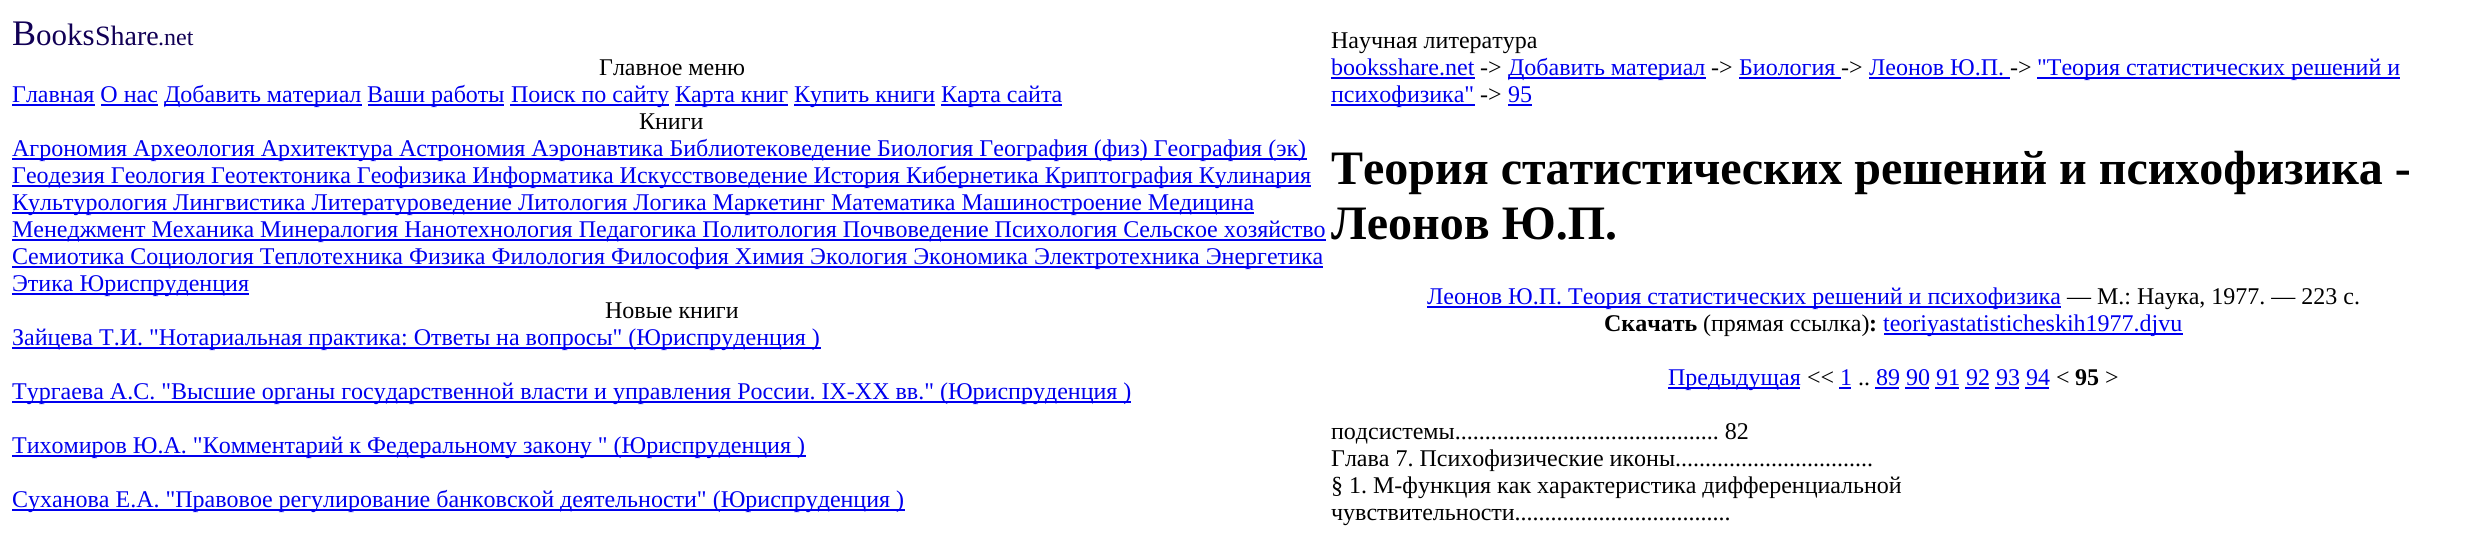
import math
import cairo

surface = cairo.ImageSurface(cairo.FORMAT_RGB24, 2467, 537)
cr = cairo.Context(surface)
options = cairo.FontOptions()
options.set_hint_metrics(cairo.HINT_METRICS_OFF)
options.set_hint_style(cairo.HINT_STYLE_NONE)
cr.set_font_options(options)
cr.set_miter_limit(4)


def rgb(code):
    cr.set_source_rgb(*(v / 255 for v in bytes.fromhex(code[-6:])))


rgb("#ffffff")
cr.paint()
for x, y, w, h, color in [
    (12, 104, 83, 2, "#0000ee"),
    (164, 104, 198, 2, "#0000ee"),
    (368, 104, 136, 2, "#0000ee"),
    (510, 104, 159, 2, "#0000ee"),
    (675, 104, 113, 2, "#0000ee"),
    (794, 104, 141, 2, "#0000ee"),
    (941, 104, 121, 2, "#0000ee"),
    (101, 104, 57, 2, "#0000ee"),
    (12, 158, 1295, 2, "#0000ee"),
    (12, 185, 1299, 2, "#0000ee"),
    (12, 212, 1242, 2, "#0000ee"),
    (12, 239, 1314, 2, "#0000ee"),
    (12, 266, 1311, 2, "#0000ee"),
    (12, 293, 237, 2, "#0000ee"),
    (12, 347, 809, 2, "#0000ee"),
    (12, 401, 1119, 2, "#0000ee"),
    (12, 455, 794, 2, "#0000ee"),
    (12, 509, 893, 2, "#0000ee"),
    (1331, 77, 144, 2, "#0000ee"),
    (1508, 77, 198, 2, "#0000ee"),
    (1739, 77, 102, 2, "#0000ee"),
    (1869, 77, 141, 2, "#0000ee"),
    (2037, 77, 363, 2, "#0000ee"),
    (1331, 104, 144, 2, "#0000ee"),
    (1508, 104, 24, 2, "#0000ee"),
    (1427, 306, 634, 2, "#0000ee"),
    (1884, 333, 299, 2, "#0000ee"),
    (1668, 387, 132, 2, "#0000ee"),
    (1839, 387, 12, 2, "#0000ee"),
    (1875, 387, 24, 2, "#0000ee"),
    (1905, 387, 24, 2, "#0000ee"),
    (1935, 387, 24, 2, "#0000ee"),
    (1965, 387, 24, 2, "#0000ee"),
    (1995, 387, 24, 2, "#0000ee"),
    (2025, 387, 24, 2, "#0000ee"),
]:
    rgb(color)
    cr.rectangle(x, y, w, h)
    cr.fill()
cr.select_font_face("Liberation Serif")
cr.set_font_size(36)
rgb("#110055")
cr.move_to(12, 45)
cr.show_text("B")
cr.set_font_size(31)
cr.move_to(36, 45)
cr.show_text("ooks")
cr.set_font_size(28)
cr.move_to(95, 45)
cr.show_text("Share")
cr.set_font_size(24)
cr.move_to(158, 45)
cr.show_text(".net")
rgb("#000000")
cr.move_to(1331, 48)
cr.show_text("Научная литература")
cr.move_to(599, 75)
cr.show_text("Главное меню")
rgb("#0000ee")
for x, y, s in [
    (12, 102, "Главная О нас"),
    (164, 102, "Добавить материал"),
    (367, 102, "Ваши работы"),
    (511, 102, "Поиск по сайту"),
    (675, 102, "Карта книг"),
    (794, 102, "Купить книги"),
    (941, 102, "Карта сайта"),
]:
    cr.move_to(x, y)
    cr.show_text(s)
rgb("#000000")
cr.move_to(639, 129)
cr.show_text("Книги")
rgb("#0000ee")
for x, y, s in [
    (12, 156, "Агрономия Археология Архитектура Астрономия Аэронавтика Библиотековедение Биология География (физ) География (эк)"),
    (12, 183, "Геодезия Геология Геотектоника Геофизика Информатика Искусствоведение История Кибернетика Криптография Кулинария"),
    (12, 210, "Культурология Лингвистика Литературоведение Литология Логика Маркетинг Математика Машиностроение Медицина"),
    (12, 237, "Менеджмент Механика Минералогия Нанотехнология Педагогика Политология Почвоведение Психология Сельское хозяйство"),
    (12, 264, "Семиотика Социология Теплотехника Физика Филология Философия Химия Экология Экономика Электротехника Энергетика"),
    (12, 291, "Этика Юриспруденция"),
]:
    cr.move_to(x, y)
    cr.show_text(s)
rgb("#000000")
cr.move_to(605, 318)
cr.show_text("Новые книги")
rgb("#0000ee")
for x, y, s in [
    (12, 345, "Зайцева Т.И. \"Нотариальная практика: Ответы на вопросы\" (Юриспруденция )"),
    (12, 399, "Тургаева А.С. \"Высшие органы государственной власти и управления России. IХ-ХХ вв.\" (Юриспруденция )"),
    (12, 453, "Тихомиров Ю.А. \"Комментарий к Федеральному закону \" (Юриспруденция )"),
    (12, 507, "Суханова Е.А. \"Правовое регулирование банковской деятельности\" (Юриспруденция )"),
    (1331, 75, "booksshare.net"),
]:
    cr.move_to(x, y)
    cr.show_text(s)
rgb("#000000")
cr.move_to(1480, 75)
cr.show_text("->")
rgb("#0000ee")
cr.move_to(1508, 75)
cr.show_text("Добавить материал")
rgb("#000000")
cr.move_to(1711, 75)
cr.show_text("->")
rgb("#0000ee")
cr.move_to(1739, 75)
cr.show_text("Биология")
rgb("#000000")
cr.move_to(1841, 75)
cr.show_text("->")
rgb("#0000ee")
cr.move_to(1869, 75)
cr.show_text("Леонов Ю.П.")
rgb("#000000")
cr.move_to(2010, 75)
cr.show_text("->")
rgb("#0000ee")
cr.move_to(2037, 75)
cr.show_text("\"Теория статистических решений и")
cr.move_to(1331, 102)
cr.show_text("психофизика\"")
rgb("#000000")
cr.move_to(1480, 102)
cr.show_text("->")
rgb("#0000ee")
cr.move_to(1508, 102)
cr.show_text("95")
cr.select_font_face("Liberation Serif", cairo.FONT_SLANT_NORMAL, cairo.FONT_WEIGHT_BOLD)
cr.set_font_size(48)
rgb("#000000")
cr.move_to(1331, 184)
cr.show_text("Теория статистических решений и психофизика -")
cr.move_to(1331, 239)
cr.show_text("Леонов Ю.П.")
cr.select_font_face("Liberation Serif")
cr.set_font_size(24)
rgb("#0000ee")
cr.move_to(1427, 304)
cr.show_text("Леонов Ю.П. Теория статистических решений и психофизика")
rgb("#000000")
cr.move_to(2067, 304)
cr.show_text("— М.: Наука, 1977. — 223 c.")
cr.select_font_face("Liberation Serif", cairo.FONT_SLANT_NORMAL, cairo.FONT_WEIGHT_BOLD)
cr.move_to(1604, 331)
cr.show_text("Скачать")
cr.select_font_face("Liberation Serif")
cr.move_to(1703, 331)
cr.show_text("(прямая ссылка)")
cr.select_font_face("Liberation Serif", cairo.FONT_SLANT_NORMAL, cairo.FONT_WEIGHT_BOLD)
cr.move_to(1869, 331)
cr.show_text(":")
cr.select_font_face("Liberation Serif")
rgb("#0000ee")
cr.move_to(1883, 331)
cr.show_text("teoriyastatisticheskih1977.djvu")
cr.move_to(1668, 385)
cr.show_text("Предыдущая")
rgb("#000000")
cr.move_to(1807, 385)
cr.show_text("<<")
rgb("#0000ee")
cr.move_to(1840, 385)
cr.show_text("1")
cr.move_to(1876, 385)
cr.show_text("89 90 91 92 93 94")
rgb("#000000")
cr.move_to(2056, 385)
cr.show_text("<")
cr.select_font_face("Liberation Serif", cairo.FONT_SLANT_NORMAL, cairo.FONT_WEIGHT_BOLD)
cr.move_to(2075, 385)
cr.show_text("95")
cr.select_font_face("Liberation Serif")
for x, y, s in [
    (2105, 385, ">"),
    (1858, 385, ".."),
    (1331, 439, "подсистемы............................................ 82"),
    (1331, 466, "Глава 7. Психофизические иконы................................."),
    (1331, 493, "§ 1. М-функция как характеристика дифференциальной"),
    (1331, 520, "чувствительности...................................."),
]:
    cr.move_to(x, y)
    cr.show_text(s)
surface.write_to_png("page.png")
